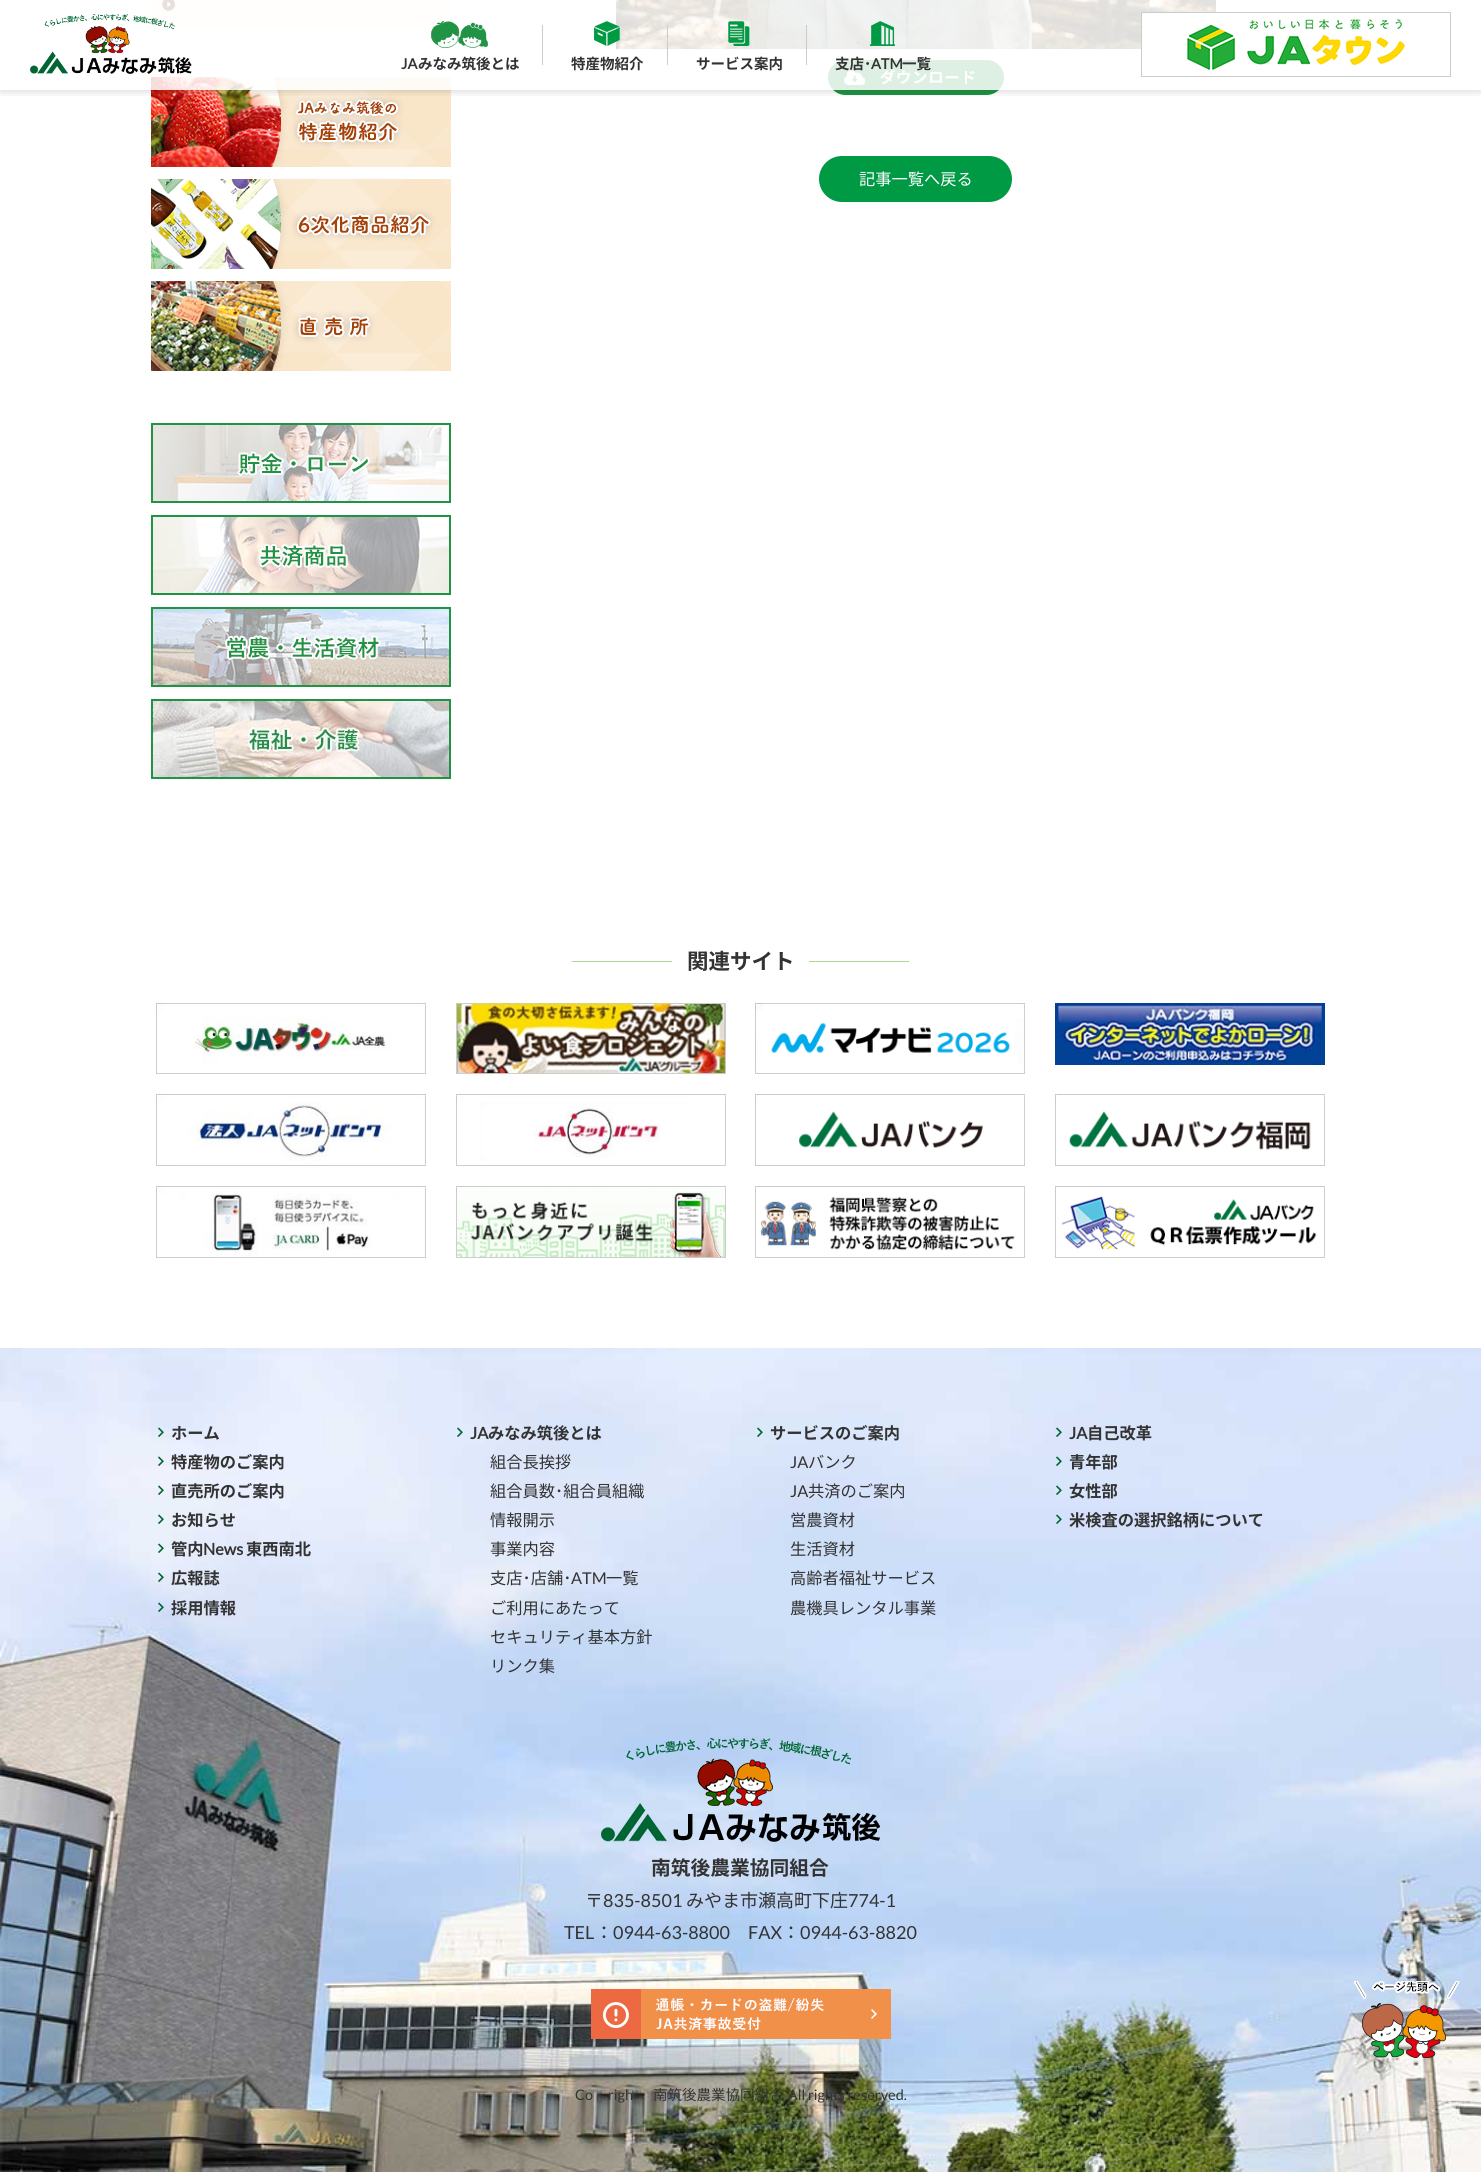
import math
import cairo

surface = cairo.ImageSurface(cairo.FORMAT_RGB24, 1481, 2172)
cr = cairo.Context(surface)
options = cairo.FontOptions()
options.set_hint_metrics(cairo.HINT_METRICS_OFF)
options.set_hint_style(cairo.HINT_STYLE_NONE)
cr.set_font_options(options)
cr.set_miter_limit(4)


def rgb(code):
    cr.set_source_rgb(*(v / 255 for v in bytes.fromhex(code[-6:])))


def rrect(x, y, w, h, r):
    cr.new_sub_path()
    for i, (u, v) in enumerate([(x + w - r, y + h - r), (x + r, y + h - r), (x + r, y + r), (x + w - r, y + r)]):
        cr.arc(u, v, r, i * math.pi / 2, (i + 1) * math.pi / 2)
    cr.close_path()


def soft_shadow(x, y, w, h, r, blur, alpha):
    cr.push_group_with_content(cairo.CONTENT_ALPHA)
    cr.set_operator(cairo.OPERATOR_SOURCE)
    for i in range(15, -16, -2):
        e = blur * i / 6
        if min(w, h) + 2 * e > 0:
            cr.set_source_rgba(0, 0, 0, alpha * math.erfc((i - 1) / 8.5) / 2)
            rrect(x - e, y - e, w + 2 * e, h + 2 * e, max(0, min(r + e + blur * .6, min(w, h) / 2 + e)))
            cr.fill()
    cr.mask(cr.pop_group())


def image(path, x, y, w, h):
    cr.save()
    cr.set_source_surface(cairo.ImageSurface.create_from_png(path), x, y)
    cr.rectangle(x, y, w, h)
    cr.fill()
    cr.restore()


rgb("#ffffff")
cr.paint()
rgb("#fcf8f3")
cr.rectangle(151, 0, 300, 27)
cr.fill()
image("img/7.png", 162, 0, 13, 11)
image("img/8.png", 151, 77, 300, 90)
image("img/15.png", 616, 0, 600, 49)
image("img/16.png", 828, 60, 176, 35)
cr.save()
cr.rectangle(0, 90, 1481, 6)
cr.clip()
rgb("#000000")
soft_shadow(0, 0, 1481, 90, 0, 5, 0.2)
cr.restore()
cr.set_source_rgba(1, 1, 1, 0.85)
cr.rectangle(151, 0, 1065, 90)
cr.fill()
image("img/1.png", 30, 14, 162, 60)
image("img/2.png", 431, 21, 57, 27)
rgb("#cccccc")
cr.rectangle(542, 25, 1, 40)
cr.fill()
image("img/3.png", 594, 21, 26, 25)
cr.rectangle(667, 25, 1, 40)
cr.fill()
image("img/4.png", 728, 21, 22, 25)
cr.rectangle(806, 25, 1, 40)
cr.fill()
image("img/5.png", 870, 21, 25, 25)
image("img/6.png", 1141, 12, 310, 65)
image("img/9.png", 151, 179, 300, 90)
image("img/10.png", 151, 281, 300, 90)
image("img/11.png", 151, 423, 300, 80)
image("img/12.png", 151, 515, 300, 80)
image("img/13.png", 151, 607, 300, 80)
image("img/14.png", 151, 699, 300, 80)
rgb("#009944")
rrect(819, 156, 193, 46, 23)
cr.fill()
rgb("#acd598")
cr.rectangle(572, 961, 100, 1)
cr.fill()
cr.rectangle(809, 961, 100, 1)
cr.fill()
image("img/17.png", 156, 1003, 270, 71)
image("img/18.png", 456, 1003, 270, 71)
image("img/19.png", 755, 1003, 270, 71)
image("img/20.png", 1055, 1003, 270, 62)
image("img/21.png", 156, 1094, 270, 72)
image("img/22.png", 456, 1094, 270, 72)
image("img/23.png", 755, 1094, 270, 72)
image("img/24.png", 1055, 1094, 270, 72)
image("img/25.png", 156, 1186, 270, 72)
image("img/26.png", 456, 1186, 270, 72)
image("img/27.png", 755, 1186, 270, 72)
image("img/28.png", 1055, 1186, 270, 72)
image("img/29.png", 0, 1348, 1481, 824)
image("img/30.png", 158, 1427, 6, 10)
image("img/31.png", 158, 1456, 6, 10)
image("img/32.png", 158, 1485, 6, 10)
image("img/33.png", 158, 1514, 6, 10)
image("img/33.png", 158, 1543, 6, 10)
image("img/34.png", 158, 1572, 6, 10)
image("img/35.png", 158, 1602, 6, 10)
image("img/36.png", 457, 1427, 6, 10)
image("img/37.png", 757, 1427, 6, 10)
image("img/38.png", 1056, 1427, 6, 10)
image("img/39.png", 1056, 1456, 6, 10)
image("img/39.png", 1056, 1485, 6, 10)
image("img/40.png", 1056, 1514, 6, 10)
image("img/41.png", 601, 1738, 280, 104)
image("img/42.png", 591, 1989, 300, 50)
image("img/43.png", 1354, 1981, 106, 77)
cr.select_font_face("Lato", cairo.FONT_SLANT_NORMAL, cairo.FONT_WEIGHT_BOLD)
cr.set_font_size(14.5)
rgb("#333333")
cr.move_to(401, 69)
cr.show_text("JA")
cr.select_font_face("Noto Sans JP", cairo.FONT_SLANT_NORMAL, cairo.FONT_WEIGHT_BOLD)
for x, y, s in [
    (418, 69, "みなみ筑後とは"),
    (571, 69, "特産物紹介"),
    (696, 69, "サービス案内"),
    (835, 69, "支店･"),
]:
    cr.move_to(x, y)
    cr.show_text(s)
cr.select_font_face("Lato", cairo.FONT_SLANT_NORMAL, cairo.FONT_WEIGHT_BOLD)
cr.move_to(871, 69)
cr.show_text("ATM")
cr.select_font_face("Noto Sans JP", cairo.FONT_SLANT_NORMAL, cairo.FONT_WEIGHT_BOLD)
cr.move_to(902, 69)
cr.show_text("一覧")
cr.select_font_face("Noto Sans JP")
cr.set_font_size(16.25)
rgb("#ffffff")
cr.move_to(859, 185)
cr.show_text("記事一覧へ戻る")
cr.select_font_face("Noto Sans JP", cairo.FONT_SLANT_NORMAL, cairo.FONT_WEIGHT_BOLD)
cr.set_font_size(21.5)
rgb("#333333")
cr.move_to(687, 969)
cr.show_text("関連サイト")
cr.set_font_size(16.25)
for x, y, s in [
    (171, 1439, "ホーム"),
    (171, 1468, "特産物のご案内"),
    (171, 1497, "直売所のご案内"),
    (171, 1526, "お知らせ"),
    (171, 1555, "管内"),
]:
    cr.move_to(x, y)
    cr.show_text(s)
cr.select_font_face("Lato", cairo.FONT_SLANT_NORMAL, cairo.FONT_WEIGHT_BOLD)
cr.move_to(203, 1555)
cr.show_text("News")
cr.select_font_face("Noto Sans JP", cairo.FONT_SLANT_NORMAL, cairo.FONT_WEIGHT_BOLD)
for x, y, s in [
    (246, 1555, "東西南北"),
    (171, 1584, "広報誌"),
    (171, 1614, "採用情報"),
]:
    cr.move_to(x, y)
    cr.show_text(s)
cr.select_font_face("Lato", cairo.FONT_SLANT_NORMAL, cairo.FONT_WEIGHT_BOLD)
cr.move_to(470, 1439)
cr.show_text("JA")
cr.select_font_face("Noto Sans JP", cairo.FONT_SLANT_NORMAL, cairo.FONT_WEIGHT_BOLD)
cr.move_to(488, 1439)
cr.show_text("みなみ筑後とは")
cr.select_font_face("Noto Sans JP")
for x, y, s in [
    (490, 1468, "組合長挨拶"),
    (490, 1497, "組合員数･組合員組織"),
    (490, 1526, "情報開示"),
    (490, 1555, "事業内容"),
    (490, 1584, "支店･店舗･"),
]:
    cr.move_to(x, y)
    cr.show_text(s)
cr.select_font_face("Lato")
cr.move_to(571, 1584)
cr.show_text("ATM")
cr.select_font_face("Noto Sans JP")
for x, y, s in [
    (606, 1584, "一覧"),
    (490, 1614, "ご利用にあたって"),
    (490, 1643, "セキュリティ基本方針"),
    (490, 1672, "リンク集"),
]:
    cr.move_to(x, y)
    cr.show_text(s)
cr.select_font_face("Noto Sans JP", cairo.FONT_SLANT_NORMAL, cairo.FONT_WEIGHT_BOLD)
cr.move_to(770, 1439)
cr.show_text("サービスのご案内")
cr.select_font_face("Lato")
cr.move_to(790, 1468)
cr.show_text("JA")
cr.select_font_face("Noto Sans JP")
cr.move_to(808, 1468)
cr.show_text("バンク")
cr.select_font_face("Lato")
cr.move_to(790, 1497)
cr.show_text("JA")
cr.select_font_face("Noto Sans JP")
for x, y, s in [
    (808, 1497, "共済のご案内"),
    (790, 1526, "営農資材"),
    (790, 1555, "生活資材"),
    (790, 1584, "高齢者福祉サービス"),
    (790, 1614, "農機具レンタル事業"),
]:
    cr.move_to(x, y)
    cr.show_text(s)
cr.select_font_face("Lato", cairo.FONT_SLANT_NORMAL, cairo.FONT_WEIGHT_BOLD)
cr.move_to(1069, 1439)
cr.show_text("JA")
cr.select_font_face("Noto Sans JP", cairo.FONT_SLANT_NORMAL, cairo.FONT_WEIGHT_BOLD)
for x, y, s in [
    (1087, 1439, "自己改革"),
    (1069, 1468, "青年部"),
    (1069, 1497, "女性部"),
    (1069, 1526, "米検査の選択銘柄について"),
]:
    cr.move_to(x, y)
    cr.show_text(s)
cr.set_font_size(19.75)
cr.move_to(651, 1875)
cr.show_text("南筑後農業協同組合")
cr.select_font_face("Noto Sans JP")
cr.set_font_size(18)
cr.move_to(585, 1907)
cr.show_text("〒")
cr.select_font_face("Lato")
cr.move_to(603, 1907)
cr.show_text("835-8501")
cr.select_font_face("Noto Sans JP")
cr.move_to(686, 1907)
cr.show_text("みやま市瀬高町下庄")
cr.select_font_face("Lato")
cr.move_to(848, 1907)
cr.show_text("774-1")
cr.move_to(564, 1939)
cr.show_text("TEL")
cr.select_font_face("Noto Sans JP")
cr.move_to(595, 1939)
cr.show_text("：")
cr.select_font_face("Lato")
cr.move_to(613, 1939)
cr.show_text("0944-63-8800")
cr.move_to(748, 1939)
cr.show_text("FAX")
cr.select_font_face("Noto Sans JP")
cr.move_to(782, 1939)
cr.show_text("：")
cr.select_font_face("Lato")
cr.move_to(800, 1939)
cr.show_text("0944-63-8820")
cr.set_font_size(14.5)
cr.move_to(575, 2100)
cr.show_text("Co")
cr.move_to(608, 2100)
cr.show_text("righ")
cr.select_font_face("Noto Sans JP")
cr.move_to(653, 2100)
cr.show_text("南筑後農業協同組合")
cr.select_font_face("Lato")
cr.move_to(782, 2100)
cr.show_text(". All rights reserved.")
surface.write_to_png("page.png")
